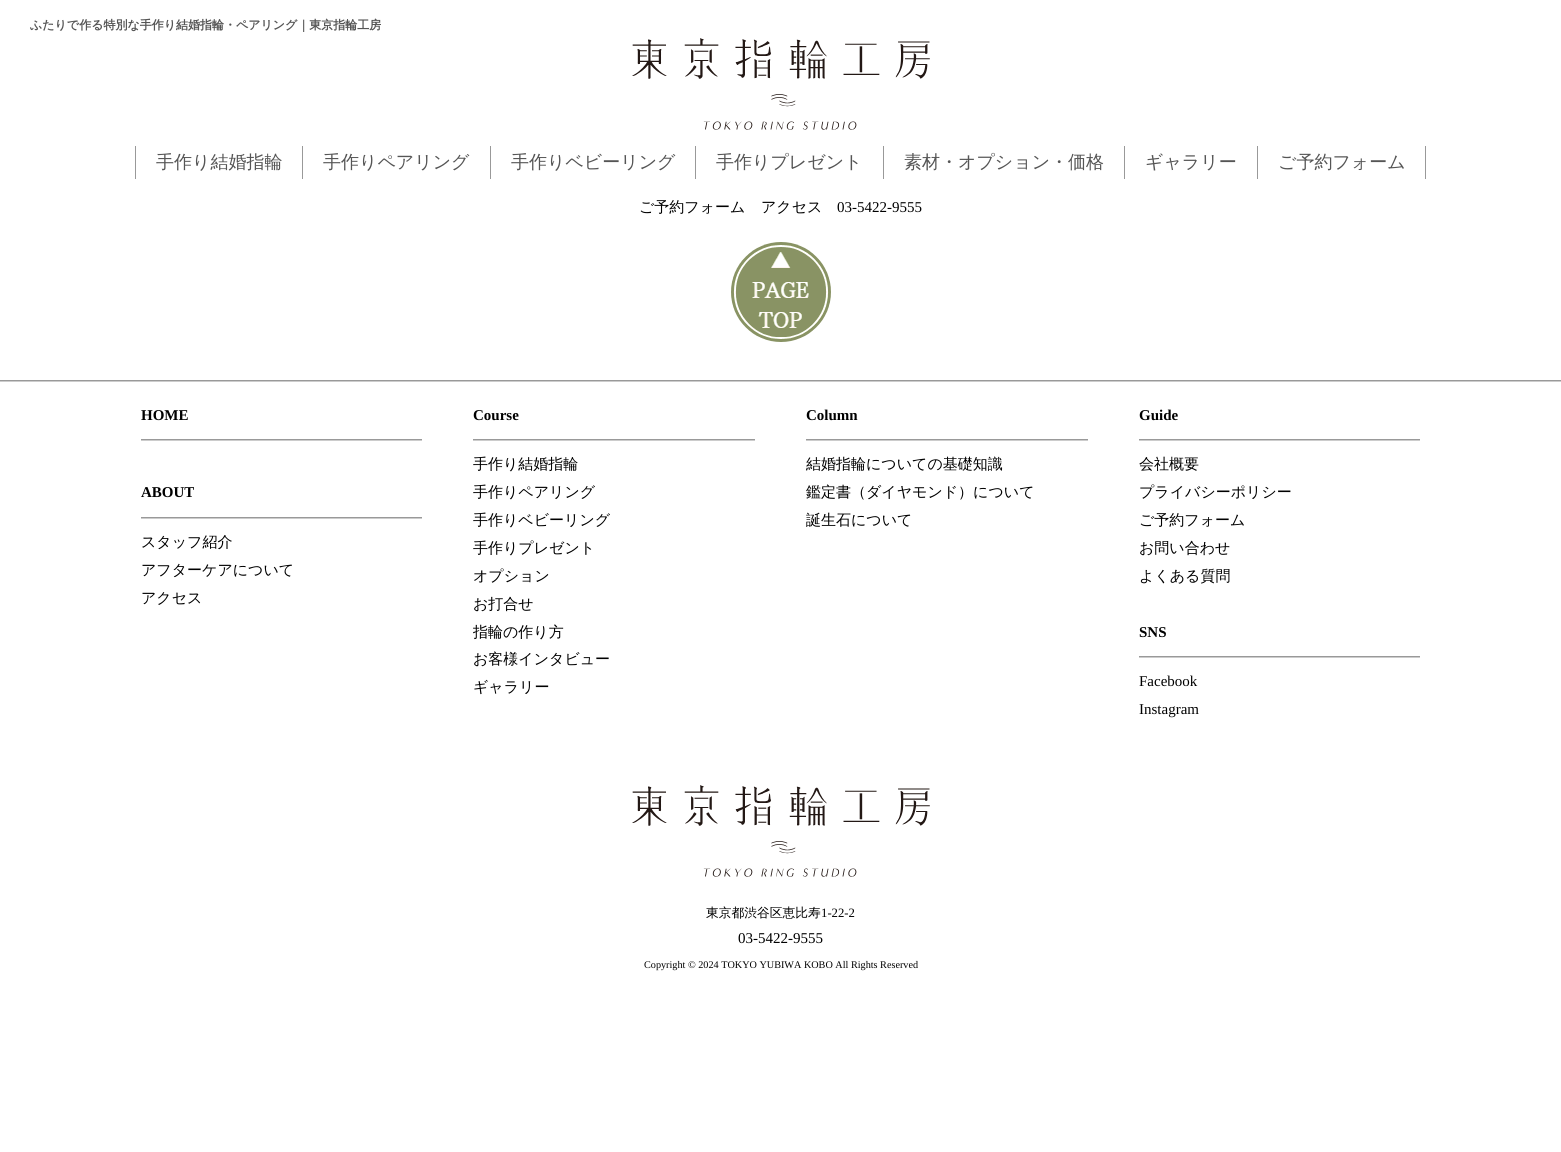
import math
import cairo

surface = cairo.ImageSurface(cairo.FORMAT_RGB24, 1561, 1152)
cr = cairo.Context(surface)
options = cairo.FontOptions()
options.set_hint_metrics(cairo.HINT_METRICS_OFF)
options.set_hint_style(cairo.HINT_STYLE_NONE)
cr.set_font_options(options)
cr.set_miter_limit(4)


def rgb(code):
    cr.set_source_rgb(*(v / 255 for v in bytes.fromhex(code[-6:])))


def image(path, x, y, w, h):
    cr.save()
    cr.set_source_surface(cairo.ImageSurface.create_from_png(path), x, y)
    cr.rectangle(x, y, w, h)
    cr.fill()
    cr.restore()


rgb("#ffffff")
cr.paint()
image("img/1.png", 632, 38, 298, 92)
for x, y, w, h, color in [
    (302, 146, 1, 33, "#999999"),
    (135, 146, 1, 33, "#999999"),
    (490, 146, 1, 33, "#999999"),
    (695, 146, 1, 33, "#999999"),
    (883, 146, 1, 33, "#999999"),
    (1124, 146, 1, 33, "#999999"),
    (1257, 146, 1, 33, "#999999"),
    (1425, 146, 1, 33, "#999999"),
]:
    rgb(color)
    cr.rectangle(x, y, w, h)
    cr.fill()
image("img/2.png", 731, 242, 100, 100)
for x, y, w, h, color in [
    (0, 381, 1561, 1, "#cccccc"),
    (0, 380, 1561, 1, "#999999"),
    (141, 440, 281, 1, "#cccccc"),
    (141, 439, 281, 1, "#999999"),
    (141, 518, 281, 1, "#cccccc"),
    (141, 517, 281, 1, "#999999"),
    (473, 440, 282, 1, "#cccccc"),
    (473, 439, 282, 1, "#999999"),
    (806, 440, 282, 1, "#cccccc"),
    (806, 439, 282, 1, "#999999"),
    (1139, 440, 281, 1, "#cccccc"),
    (1139, 439, 281, 1, "#999999"),
    (1139, 657, 281, 1, "#cccccc"),
    (1139, 656, 281, 1, "#999999"),
]:
    rgb(color)
    cr.rectangle(x, y, w, h)
    cr.fill()
image("img/1.png", 632, 785, 298, 92)
cr.select_font_face("WenQuanYi Zen Hei", cairo.FONT_SLANT_NORMAL, cairo.FONT_WEIGHT_BOLD)
cr.set_font_size(12)
rgb("#555555")
cr.move_to(30, 29)
cr.show_text("ふたりで作る特別な手作り結婚指輪・ペアリング｜東京指輪工房")
cr.select_font_face("WenQuanYi Zen Hei Medium")
cr.set_font_size(18)
for x, y, s in [
    (156, 168, "手作り結婚指輪"),
    (323, 168, "手作りペアリング"),
    (511, 168, "手作りベビーリング"),
    (716, 168, "手作りプレゼント"),
    (904, 168, "素材・オプション・価格"),
    (1145, 168, "ギャラリー"),
    (1278, 168, "ご予約フォーム"),
]:
    cr.move_to(x, y)
    cr.show_text(s)
cr.set_font_size(15)
rgb("#000000")
cr.move_to(639, 212)
cr.show_text("ご予約フォーム")
cr.move_to(761, 212)
cr.show_text("アクセス")
cr.select_font_face("Liberation Serif")
cr.move_to(837, 212)
cr.show_text("03-5422-9555")
cr.select_font_face("Liberation Serif", cairo.FONT_SLANT_NORMAL, cairo.FONT_WEIGHT_BOLD)
cr.move_to(141, 420)
cr.show_text("HOME")
cr.move_to(141, 497)
cr.show_text("ABOUT")
cr.select_font_face("WenQuanYi Zen Hei Medium")
for x, y, s in [
    (141, 547, "スタッフ紹介"),
    (141, 575, "アフターケアについて"),
    (141, 603, "アクセス"),
]:
    cr.move_to(x, y)
    cr.show_text(s)
cr.select_font_face("Liberation Serif", cairo.FONT_SLANT_NORMAL, cairo.FONT_WEIGHT_BOLD)
cr.move_to(473, 420)
cr.show_text("Course")
cr.select_font_face("WenQuanYi Zen Hei Medium")
for x, y, s in [
    (473, 469, "手作り結婚指輪"),
    (473, 497, "手作りペアリング"),
    (473, 525, "手作りベビーリング"),
    (473, 553, "手作りプレゼント"),
    (473, 581, "オプション"),
    (473, 609, "お打合せ"),
    (473, 637, "指輪の作り方"),
    (473, 664, "お客様インタビュー"),
    (473, 692, "ギャラリー"),
]:
    cr.move_to(x, y)
    cr.show_text(s)
cr.select_font_face("Liberation Serif", cairo.FONT_SLANT_NORMAL, cairo.FONT_WEIGHT_BOLD)
cr.move_to(806, 420)
cr.show_text("Column")
cr.select_font_face("WenQuanYi Zen Hei Medium")
for x, y, s in [
    (806, 469, "結婚指輪についての基礎知識"),
    (806, 497, "鑑定書（ダイヤモンド）について"),
    (806, 525, "誕生石について"),
]:
    cr.move_to(x, y)
    cr.show_text(s)
cr.select_font_face("Liberation Serif", cairo.FONT_SLANT_NORMAL, cairo.FONT_WEIGHT_BOLD)
cr.move_to(1139, 420)
cr.show_text("Guide")
cr.select_font_face("WenQuanYi Zen Hei Medium")
for x, y, s in [
    (1139, 469, "会社概要"),
    (1139, 497, "プライバシーポリシー"),
    (1139, 525, "ご予約フォーム"),
    (1139, 553, "お問い合わせ"),
    (1139, 581, "よくある質問"),
]:
    cr.move_to(x, y)
    cr.show_text(s)
cr.select_font_face("Liberation Serif", cairo.FONT_SLANT_NORMAL, cairo.FONT_WEIGHT_BOLD)
cr.move_to(1139, 637)
cr.show_text("SNS")
cr.select_font_face("Liberation Serif")
cr.move_to(1139, 686)
cr.show_text("Facebook")
cr.move_to(1139, 714)
cr.show_text("Instagram")
cr.select_font_face("WenQuanYi Zen Hei Medium")
cr.set_font_size(12.75)
cr.move_to(706, 917)
cr.show_text("東京都渋谷区恵比寿")
cr.select_font_face("Liberation Serif")
cr.move_to(821, 917)
cr.show_text("1-22-2")
cr.set_font_size(15)
cr.move_to(738, 943)
cr.show_text("03-5422-9555")
cr.set_font_size(10.2)
cr.move_to(644, 968)
cr.show_text("Copyright © 2024 TOKYO YUBIWA KOBO All Rights Reserved")
surface.write_to_png("page.png")
